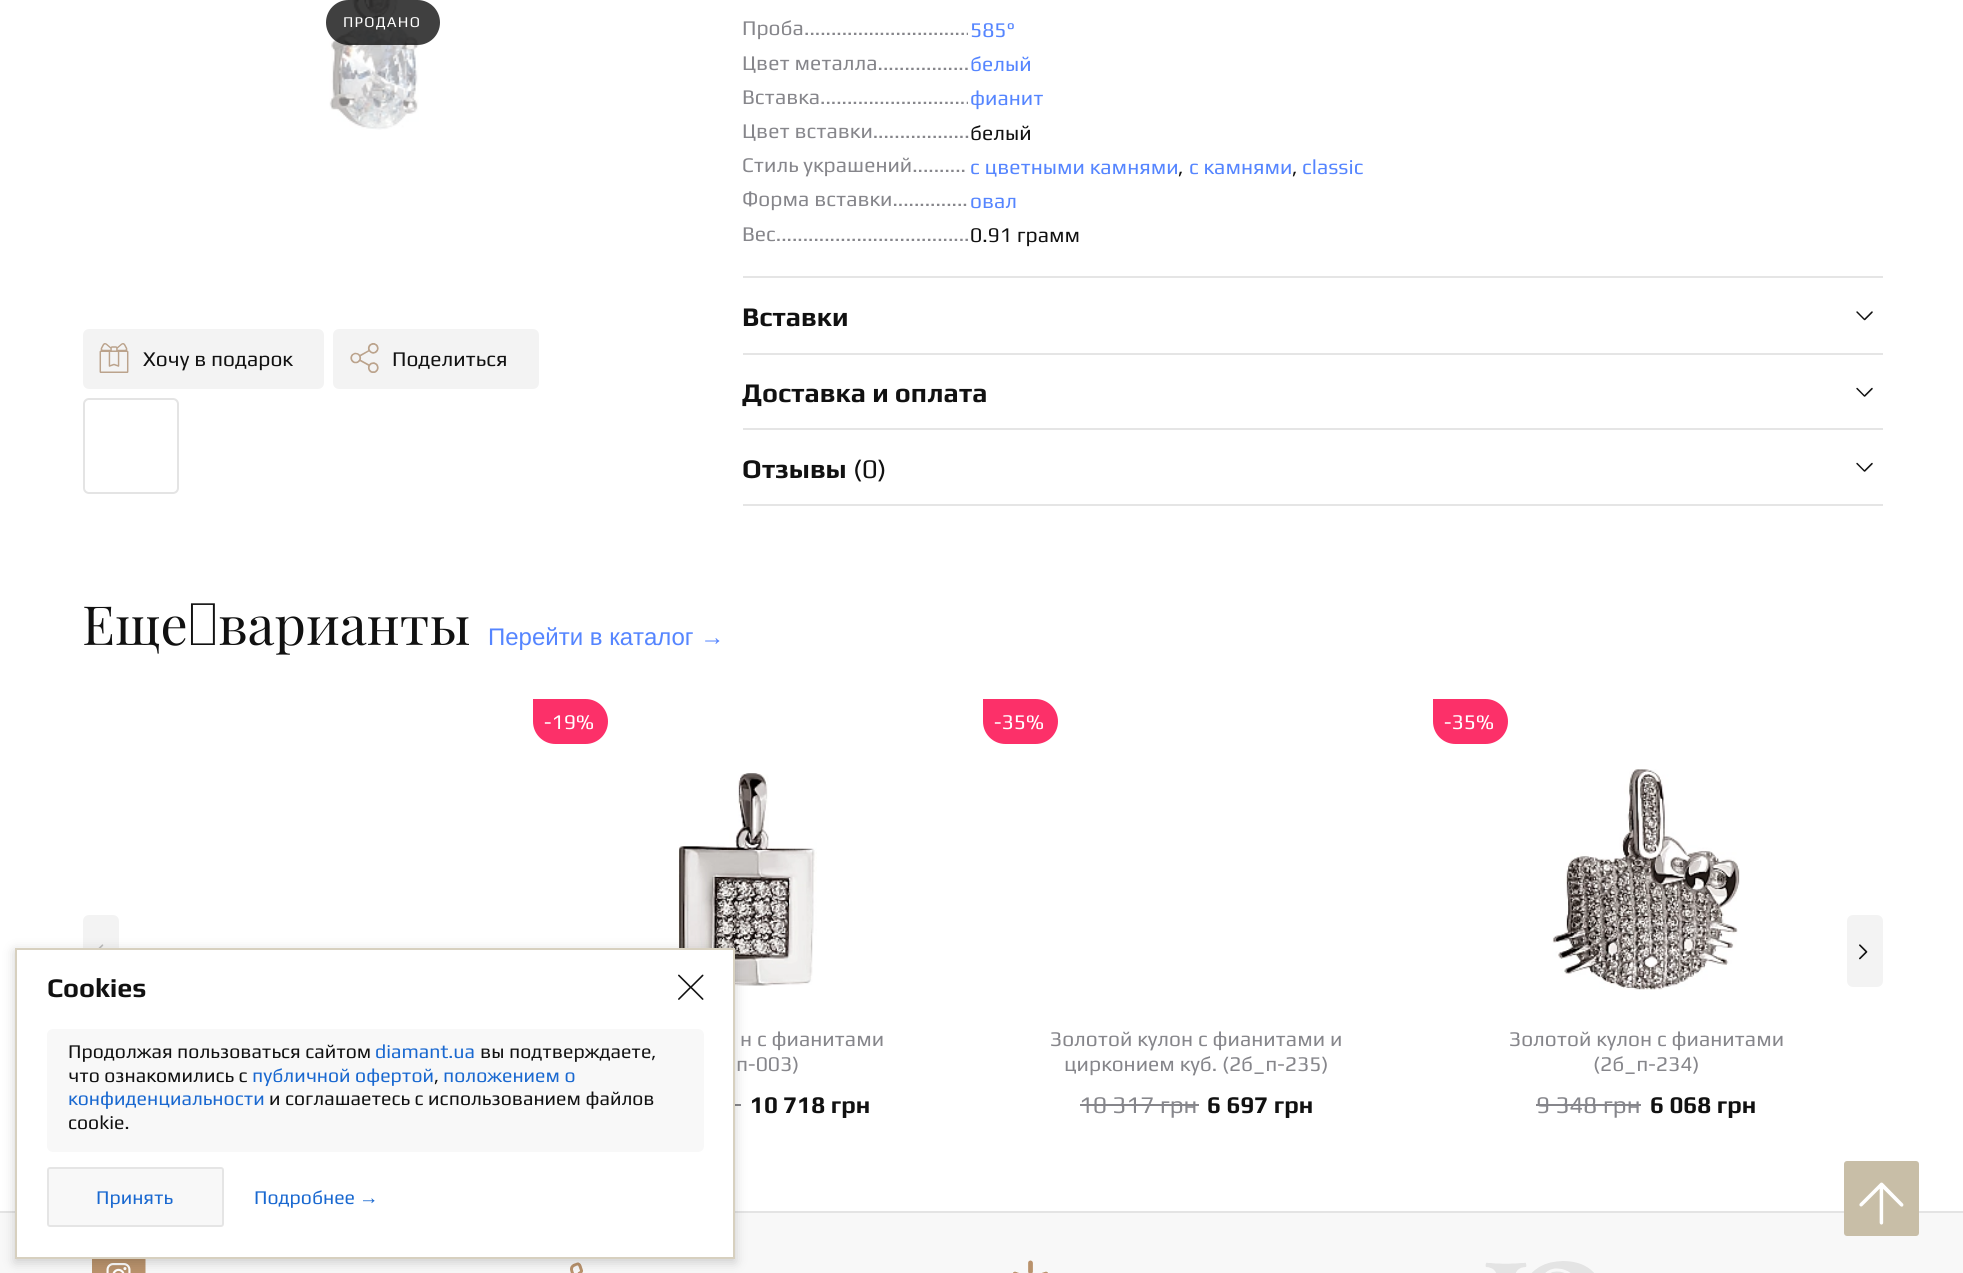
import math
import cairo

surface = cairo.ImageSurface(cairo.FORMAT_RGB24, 1963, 1273)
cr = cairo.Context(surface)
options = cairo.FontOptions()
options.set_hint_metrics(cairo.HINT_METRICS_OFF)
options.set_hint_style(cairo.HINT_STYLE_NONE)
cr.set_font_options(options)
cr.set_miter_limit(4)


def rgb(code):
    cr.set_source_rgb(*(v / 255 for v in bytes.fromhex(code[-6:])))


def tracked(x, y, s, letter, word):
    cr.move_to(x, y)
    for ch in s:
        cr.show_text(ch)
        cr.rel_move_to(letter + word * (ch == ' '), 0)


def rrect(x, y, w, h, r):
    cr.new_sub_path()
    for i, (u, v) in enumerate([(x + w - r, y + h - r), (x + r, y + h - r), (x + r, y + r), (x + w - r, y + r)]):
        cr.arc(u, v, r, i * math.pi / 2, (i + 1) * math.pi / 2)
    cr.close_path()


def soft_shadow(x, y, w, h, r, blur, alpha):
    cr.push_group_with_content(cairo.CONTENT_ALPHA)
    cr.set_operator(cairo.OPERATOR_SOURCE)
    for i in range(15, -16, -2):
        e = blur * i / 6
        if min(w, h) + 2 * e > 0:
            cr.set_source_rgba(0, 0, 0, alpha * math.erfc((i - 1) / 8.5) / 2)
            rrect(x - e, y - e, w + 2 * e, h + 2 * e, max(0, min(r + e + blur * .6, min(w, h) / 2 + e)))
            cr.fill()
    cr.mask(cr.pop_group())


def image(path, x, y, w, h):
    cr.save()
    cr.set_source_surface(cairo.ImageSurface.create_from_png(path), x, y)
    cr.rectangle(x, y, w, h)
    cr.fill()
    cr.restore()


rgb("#ffffff")
cr.paint()
image("img/1.png", 329, 0, 90, 130)
cr.set_source_rgba(0.067, 0.067, 0.067, 0.8)
rrect(326, 0, 114, 45, 22.5)
cr.fill()
rgb("#f3f3f3")
rrect(83, 329, 241, 60, 6)
cr.fill()
image("img/2.png", 99, 343, 30, 30)
rrect(333, 329, 206, 60, 6)
cr.fill()
image("img/3.png", 350, 343, 29, 30)
rrect(84, 399, 94, 94, 5)
rgb("#e4e4e4")
cr.stroke()
rgb("#e5e5e5")
cr.rectangle(743, 276, 1140, 2)
cr.fill()
cr.rectangle(743, 353, 1140, 2)
cr.fill()
image("img/4.png", 1856, 311, 17, 10)
cr.rectangle(743, 428, 1140, 2)
cr.fill()
image("img/5.png", 1856, 387, 17, 10)
cr.rectangle(743, 504, 1140, 2)
cr.fill()
image("img/5.png", 1856, 462, 17, 10)
rgb("#fc3069")
cr.new_path()
cr.move_to(533, 699)
cr.line_to(585.5, 699)
cr.curve_to(598, 699, 608, 709, 608, 721.5)
cr.curve_to(608, 734, 598, 744, 585.5, 744)
cr.line_to(555.5, 744)
cr.curve_to(543, 744, 533, 734, 533, 721.5)
cr.close_path()
cr.fill()
image("img/6.png", 678, 773, 139, 213)
rgb("#86868b")
cr.rectangle(735, 1104, 6, 2)
cr.fill()
rgb("#fc3069")
cr.new_path()
cr.move_to(983, 699)
cr.line_to(1035.5, 699)
cr.curve_to(1048, 699, 1058, 709, 1058, 721.5)
cr.curve_to(1058, 734, 1048, 744, 1035.5, 744)
cr.line_to(1005.5, 744)
cr.curve_to(993, 744, 983, 734, 983, 721.5)
cr.close_path()
cr.fill()
rgb("#86868b")
cr.rectangle(1080, 1104, 119, 2)
cr.fill()
rgb("#fc3069")
cr.new_path()
cr.move_to(1433, 699)
cr.line_to(1485.5, 699)
cr.curve_to(1498, 699, 1508, 709, 1508, 721.5)
cr.curve_to(1508, 734, 1498, 744, 1485.5, 744)
cr.line_to(1455.5, 744)
cr.curve_to(1443, 744, 1433, 734, 1433, 721.5)
cr.close_path()
cr.fill()
image("img/7.png", 1552, 769, 188, 221)
rgb("#86868b")
cr.rectangle(1536, 1104, 105, 2)
cr.fill()
rgb("#f3f3f3")
rrect(83, 915, 36, 72, 6)
cr.fill()
image("img/8.png", 98, 944, 6, 4)
rrect(1847, 915, 36, 72, 6)
cr.fill()
image("img/9.png", 1859, 944, 9, 16)
rgb("#f8f8f8")
cr.rectangle(0, 1213, 1963, 60)
cr.fill()
rgb("#e4e4e4")
cr.rectangle(0, 1211, 1963, 2)
cr.fill()
image("img/12.png", 92, 1259, 54, 14)
image("img/13.png", 570, 1262, 13, 11)
rgb("#111111")
soft_shadow(15, 951, 720, 311, 0, 6, 0.2)
rgb("#ffffff")
cr.rectangle(16, 949, 718, 309)
cr.fill_preserve()
rgb("#d7d0bf")
cr.stroke()
image("img/10.png", 678, 974, 26, 26)
rgb("#f8f8f8")
rrect(47, 1029, 657, 123, 6)
cr.fill()
rrect(48, 1168, 175, 58, 2)
cr.fill_preserve()
rgb("#e5e5e5")
cr.stroke()
rgb("#c8bea7")
rrect(1844, 1161, 75, 75, 3)
cr.fill()
image("img/11.png", 1859, 1182, 45, 43)
image("img/14.png", 1013, 1260, 35, 13)
image("img/15.png", 1485, 1261, 109, 12)
cr.select_font_face("Play")
cr.set_font_size(15)
rgb("#ffffff")
tracked(343, 27, "ПРОДАНО", 1.25, 0)
cr.set_font_size(21)
rgb("#111111")
cr.move_to(143, 366)
cr.show_text("Хочу в подарок")
cr.move_to(392, 366)
cr.show_text("Поделиться")
rgb("#86868b")
cr.move_to(742, 35)
cr.show_text("Проба")
cr.save()
cr.rectangle(743, 18, 225, 24)
cr.clip()
cr.move_to(804, 35)
cr.show_text("...............................")
cr.restore()
rgb("#5585ff")
cr.move_to(970, 37)
cr.show_text("585°")
rgb("#86868b")
cr.move_to(742, 70)
cr.show_text("Цвет металла.................")
rgb("#5585ff")
cr.move_to(970, 71)
cr.show_text("белый")
rgb("#86868b")
cr.move_to(742, 104)
cr.show_text("Вставка")
cr.save()
cr.rectangle(743, 86, 225, 25)
cr.clip()
cr.move_to(820, 104)
cr.show_text("............................")
cr.restore()
rgb("#5585ff")
cr.move_to(970, 105)
cr.show_text("фианит")
rgb("#86868b")
cr.move_to(742, 138)
cr.show_text("Цвет вставки..................")
rgb("#111111")
cr.move_to(970, 140)
cr.show_text("белый")
rgb("#86868b")
cr.move_to(742, 172)
cr.show_text("Стиль украшений..........")
rgb("#5585ff")
cr.move_to(970, 174)
cr.show_text("с цветными камнями")
rgb("#111111")
cr.move_to(1178, 174)
cr.show_text(",")
rgb("#5585ff")
cr.move_to(1189, 174)
cr.show_text("с камнями")
rgb("#111111")
cr.move_to(1292, 174)
cr.show_text(",")
rgb("#5585ff")
cr.move_to(1302, 174)
cr.show_text("classic")
rgb("#86868b")
cr.move_to(742, 206)
cr.show_text("Форма вставки..............")
rgb("#5585ff")
cr.move_to(970, 208)
cr.show_text("овал")
rgb("#86868b")
cr.move_to(742, 241)
cr.show_text("Вес....................................")
rgb("#111111")
cr.move_to(970, 242)
cr.show_text("0.91 грамм")
cr.select_font_face("Play", cairo.FONT_SLANT_NORMAL, cairo.FONT_WEIGHT_BOLD)
cr.set_font_size(27)
for x, y, s in [
    (742, 326, "Вставки"),
    (742, 402, "Доставка и оплата"),
    (742, 478, "Отзывы"),
]:
    cr.move_to(x, y)
    cr.show_text(s)
cr.select_font_face("Play")
cr.move_to(853, 478)
cr.show_text("(0)")
cr.select_font_face("Playfair Display")
cr.set_font_size(54)
cr.move_to(82, 645)
cr.show_text("Еще варианты")
cr.select_font_face("Liberation Sans")
cr.set_font_size(24)
rgb("#5585ff")
cr.move_to(488, 645)
cr.show_text("Перейти в каталог →")
cr.select_font_face("Play")
cr.set_font_size(21)
rgb("#ffffff")
cr.move_to(544, 729)
cr.show_text("-19%")
rgb("#86868b")
cr.move_to(740, 1046)
cr.show_text("н с фианитами")
cr.move_to(736, 1071)
cr.show_text("п-003)")
cr.select_font_face("Play", cairo.FONT_SLANT_NORMAL, cairo.FONT_WEIGHT_BOLD)
cr.set_font_size(24)
rgb("#111111")
cr.move_to(750, 1113)
cr.show_text("10 718 грн")
cr.select_font_face("Play")
cr.set_font_size(21)
rgb("#ffffff")
cr.move_to(994, 729)
cr.show_text("-35%")
rgb("#86868b")
cr.move_to(1050, 1046)
cr.show_text("Золотой кулон с фианитами и")
cr.move_to(1064, 1071)
cr.show_text("цирконием куб. (2б_п-235)")
cr.set_font_size(24)
cr.move_to(1079, 1113)
cr.show_text("10 317 грн")
cr.select_font_face("Play", cairo.FONT_SLANT_NORMAL, cairo.FONT_WEIGHT_BOLD)
rgb("#111111")
cr.move_to(1207, 1113)
cr.show_text("6 697 грн")
cr.select_font_face("Play")
cr.set_font_size(21)
rgb("#ffffff")
cr.move_to(1444, 729)
cr.show_text("-35%")
rgb("#86868b")
cr.move_to(1509, 1046)
cr.show_text("Золотой кулон с фианитами")
cr.move_to(1593, 1071)
cr.show_text("(2б_п-234)")
cr.set_font_size(24)
cr.move_to(1536, 1113)
cr.show_text("9 348 грн")
cr.select_font_face("Play", cairo.FONT_SLANT_NORMAL, cairo.FONT_WEIGHT_BOLD)
rgb("#111111")
cr.move_to(1650, 1113)
cr.show_text("6 068 грн")
cr.set_font_size(27)
cr.move_to(47, 997)
cr.show_text("Сookies")
cr.select_font_face("Play")
cr.set_font_size(19.5)
cr.move_to(68, 1058)
cr.show_text("Продолжая пользоваться сайтом")
rgb("#1968d0")
cr.move_to(375, 1058)
cr.show_text("diamant.ua")
rgb("#111111")
cr.move_to(480, 1058)
cr.show_text("вы подтверждаете,")
cr.move_to(68, 1082)
cr.show_text("что ознакомились с")
rgb("#1968d0")
cr.move_to(252, 1082)
cr.show_text("публичной офертой")
rgb("#111111")
cr.move_to(434, 1082)
cr.show_text(",")
rgb("#1968d0")
cr.move_to(443, 1082)
cr.show_text("положением о")
cr.move_to(68, 1105)
cr.show_text("конфиденциальности")
rgb("#111111")
cr.move_to(269, 1105)
cr.show_text("и соглашаетесь с использованием файлов")
cr.move_to(68, 1129)
cr.show_text("cookie.")
rgb("#1968d0")
cr.move_to(96, 1204)
cr.show_text("Принять")
cr.move_to(254, 1204)
cr.show_text("Подробнее")
cr.select_font_face("Liberation Serif")
cr.move_to(359, 1204)
cr.show_text("→")
surface.write_to_png("page.png")
